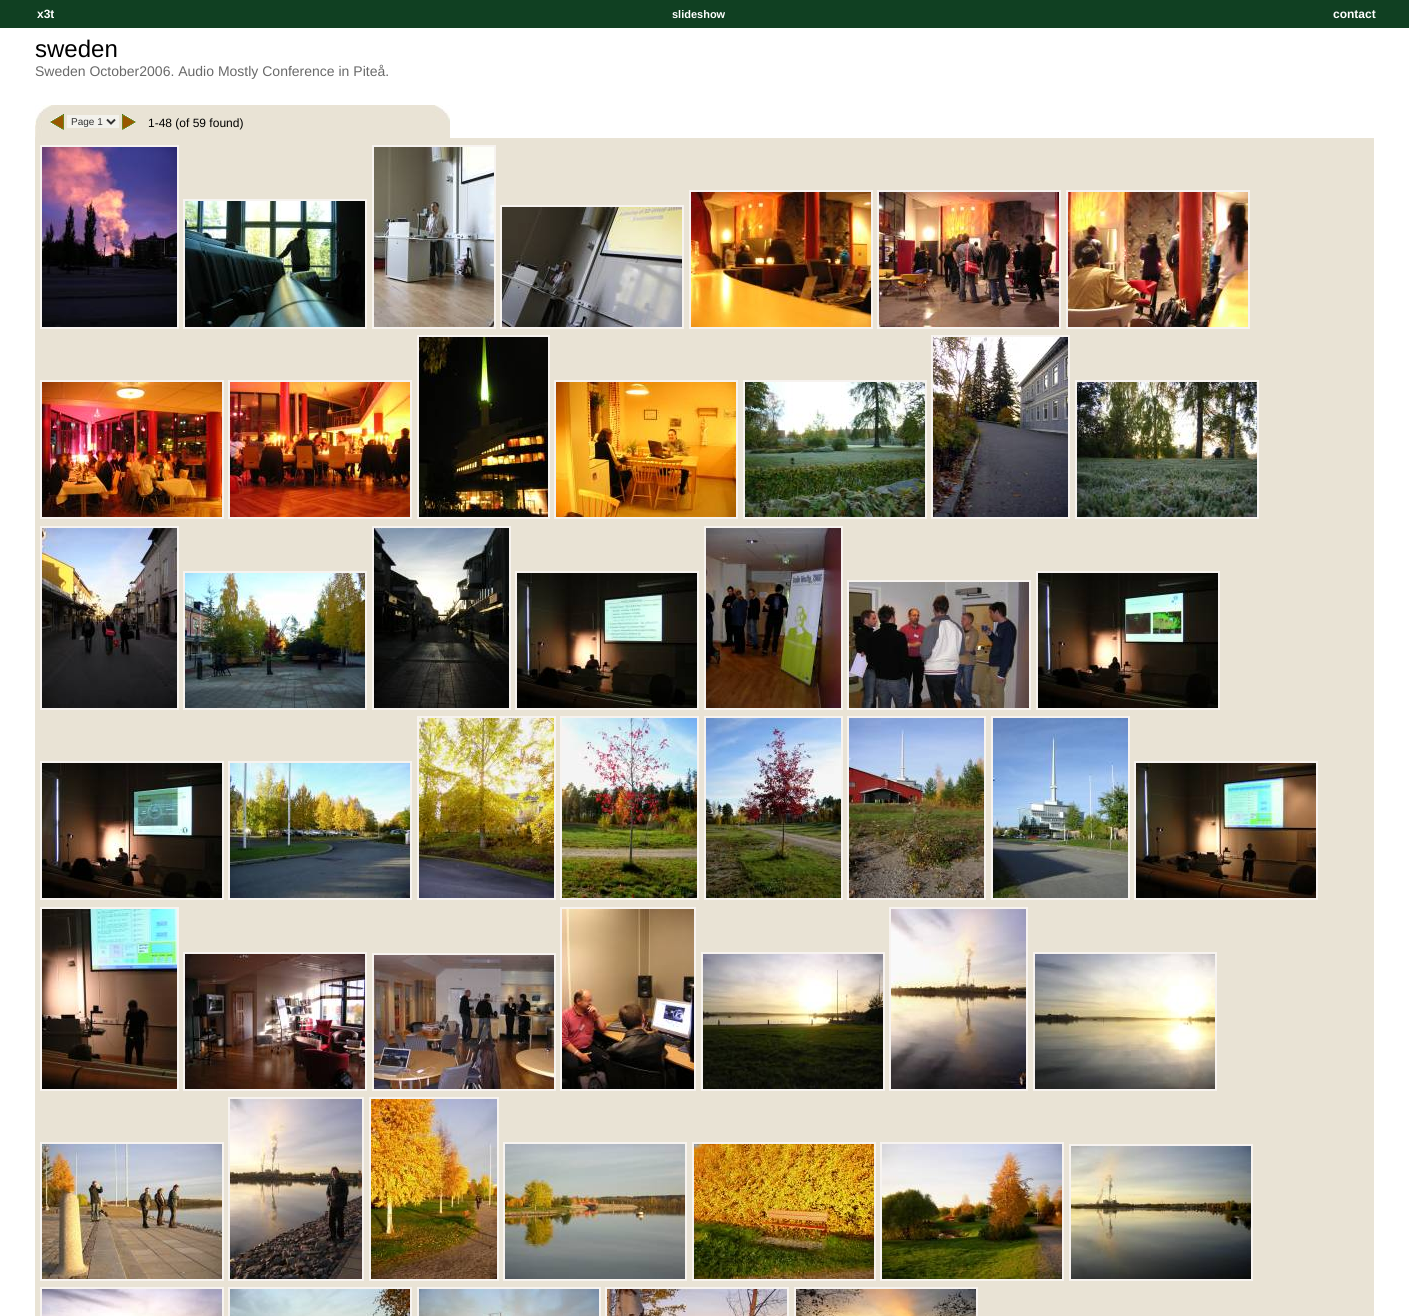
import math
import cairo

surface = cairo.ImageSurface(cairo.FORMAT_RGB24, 1409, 1316)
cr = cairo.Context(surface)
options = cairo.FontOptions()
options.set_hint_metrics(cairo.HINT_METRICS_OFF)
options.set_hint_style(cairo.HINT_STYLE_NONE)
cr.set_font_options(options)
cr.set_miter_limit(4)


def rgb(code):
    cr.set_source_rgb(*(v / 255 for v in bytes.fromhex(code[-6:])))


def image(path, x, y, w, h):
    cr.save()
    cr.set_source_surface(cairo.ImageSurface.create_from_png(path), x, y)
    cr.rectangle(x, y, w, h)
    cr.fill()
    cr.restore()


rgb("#ffffff")
cr.paint()
rgb("#104022")
cr.rectangle(0, 0, 1409, 28)
cr.fill()
image("img/1.png", 35, 105, 415, 33)
image("img/2.png", 50, 114, 14, 16)
rgb("#f3f2ed")
cr.rectangle(67, 115, 52, 13)
cr.fill()
cr.new_path()
cr.move_to(107, 119.5)
cr.line_to(111, 123.5)
cr.line_to(115, 119.5)
rgb("#333333")
cr.stroke()
image("img/3.png", 122, 114, 14, 16)
rgb("#e9e3d5")
cr.rectangle(35, 138, 1339, 1178)
cr.fill()
cr.rectangle(41, 146, 137, 182)
rgb("#f7f3f0")
cr.stroke()
cr.rectangle(373, 146, 122, 182)
cr.stroke()
image("img/4.png", 42, 147, 135, 180)
image("img/5.png", 374, 147, 120, 180)
cr.rectangle(690, 191, 182, 137)
cr.stroke()
cr.rectangle(878, 191, 182, 137)
cr.stroke()
cr.rectangle(1067, 191, 182, 137)
cr.stroke()
cr.rectangle(184, 200, 182, 128)
cr.stroke()
image("img/6.png", 691, 192, 180, 135)
image("img/7.png", 879, 192, 180, 135)
image("img/8.png", 1068, 192, 180, 135)
image("img/9.png", 185, 201, 180, 126)
cr.rectangle(501, 206, 182, 122)
cr.stroke()
image("img/10.png", 502, 207, 180, 120)
cr.rectangle(418, 336, 131, 182)
cr.stroke()
cr.rectangle(932, 336, 137, 182)
cr.stroke()
cr.rectangle(41, 381, 182, 137)
cr.stroke()
cr.rectangle(229, 381, 182, 137)
cr.stroke()
image("img/11.png", 419, 337, 129, 180)
cr.rectangle(555, 381, 182, 137)
cr.stroke()
cr.rectangle(744, 381, 182, 137)
cr.stroke()
image("img/12.png", 933, 337, 135, 180)
cr.rectangle(1076, 381, 182, 137)
cr.stroke()
image("img/13.png", 42, 382, 180, 135)
image("img/14.png", 230, 382, 180, 135)
image("img/15.png", 556, 382, 180, 135)
image("img/16.png", 745, 382, 180, 135)
image("img/17.png", 1077, 382, 180, 135)
cr.rectangle(41, 527, 137, 182)
cr.stroke()
cr.rectangle(373, 527, 137, 182)
cr.stroke()
cr.rectangle(705, 527, 137, 182)
cr.stroke()
image("img/18.png", 42, 528, 135, 180)
cr.rectangle(184, 572, 182, 137)
cr.stroke()
image("img/19.png", 374, 528, 135, 180)
cr.rectangle(516, 572, 182, 137)
cr.stroke()
image("img/20.png", 706, 528, 135, 180)
cr.rectangle(1037, 572, 182, 137)
cr.stroke()
image("img/21.png", 185, 573, 180, 135)
image("img/22.png", 517, 573, 180, 135)
cr.rectangle(848, 581, 182, 128)
cr.stroke()
image("img/23.png", 1038, 573, 180, 135)
image("img/24.png", 849, 582, 180, 126)
cr.rectangle(418, 717, 137, 182)
cr.stroke()
cr.rectangle(561, 717, 137, 182)
cr.stroke()
cr.rectangle(705, 717, 137, 182)
cr.stroke()
cr.rectangle(848, 717, 137, 182)
cr.stroke()
cr.rectangle(992, 717, 137, 182)
cr.stroke()
cr.rectangle(41, 762, 182, 137)
cr.stroke()
cr.rectangle(229, 762, 182, 137)
cr.stroke()
image("img/25.png", 419, 718, 135, 180)
image("img/26.png", 562, 718, 135, 180)
image("img/27.png", 706, 718, 135, 180)
image("img/28.png", 849, 718, 135, 180)
image("img/29.png", 993, 718, 135, 180)
cr.rectangle(1135, 762, 182, 137)
cr.stroke()
image("img/30.png", 42, 763, 180, 135)
image("img/31.png", 230, 763, 180, 135)
image("img/32.png", 1136, 763, 180, 135)
cr.rectangle(41, 908, 137, 182)
cr.stroke()
cr.rectangle(561, 908, 134, 182)
cr.stroke()
cr.rectangle(890, 908, 137, 182)
cr.stroke()
image("img/33.png", 42, 909, 135, 180)
cr.rectangle(184, 953, 182, 137)
cr.stroke()
cr.rectangle(373, 954, 182, 136)
cr.stroke()
image("img/34.png", 562, 909, 132, 180)
cr.rectangle(702, 953, 182, 137)
cr.stroke()
image("img/35.png", 891, 909, 135, 180)
cr.rectangle(1034, 953, 182, 137)
cr.stroke()
image("img/36.png", 185, 954, 180, 135)
image("img/37.png", 374, 955, 180, 134)
image("img/38.png", 703, 954, 180, 135)
image("img/39.png", 1035, 954, 180, 135)
cr.rectangle(229, 1098, 134, 182)
cr.stroke()
cr.rectangle(370, 1098, 128, 182)
cr.stroke()
cr.rectangle(41, 1143, 182, 137)
cr.stroke()
image("img/40.png", 230, 1099, 132, 180)
image("img/41.png", 371, 1099, 126, 180)
cr.rectangle(504, 1143, 182, 137)
cr.stroke()
cr.rectangle(693, 1143, 182, 137)
cr.stroke()
cr.rectangle(881, 1143, 182, 137)
cr.stroke()
image("img/42.png", 42, 1144, 180, 135)
image("img/43.png", 505, 1144, 180, 135)
image("img/44.png", 694, 1144, 180, 135)
image("img/45.png", 882, 1144, 180, 135)
cr.rectangle(1070, 1145, 182, 135)
cr.stroke()
image("img/46.png", 1071, 1146, 180, 133)
cr.rectangle(41, 1288, 182, 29)
cr.stroke()
cr.rectangle(229, 1288, 182, 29)
cr.stroke()
cr.rectangle(418, 1288, 182, 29)
cr.stroke()
cr.rectangle(606, 1288, 182, 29)
cr.stroke()
cr.rectangle(795, 1288, 182, 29)
cr.stroke()
image("img/47.png", 42, 1289, 180, 27)
image("img/48.png", 230, 1289, 180, 27)
image("img/49.png", 419, 1289, 180, 27)
image("img/50.png", 607, 1289, 180, 27)
image("img/51.png", 796, 1289, 180, 27)
cr.select_font_face("Liberation Sans", cairo.FONT_SLANT_NORMAL, cairo.FONT_WEIGHT_BOLD)
cr.set_font_size(12)
rgb("#ffffff")
cr.move_to(37, 18)
cr.show_text("x3t")
cr.set_font_size(11)
cr.move_to(672, 18)
cr.show_text("slideshow")
cr.set_font_size(12)
cr.move_to(1333, 18)
cr.show_text("contact")
cr.select_font_face("Liberation Sans")
cr.set_font_size(24)
rgb("#000000")
cr.move_to(35, 57)
cr.show_text("sweden")
cr.set_font_size(14)
rgb("#696969")
cr.move_to(35, 76)
cr.show_text("Sweden October2006. Audio Mostly Conference in Piteå.")
cr.set_font_size(10)
rgb("#333333")
cr.move_to(71, 125)
cr.show_text("Page 1")
cr.set_font_size(12)
rgb("#000000")
cr.move_to(148, 127)
cr.show_text("1-48 (of 59 found)")
surface.write_to_png("page.png")
